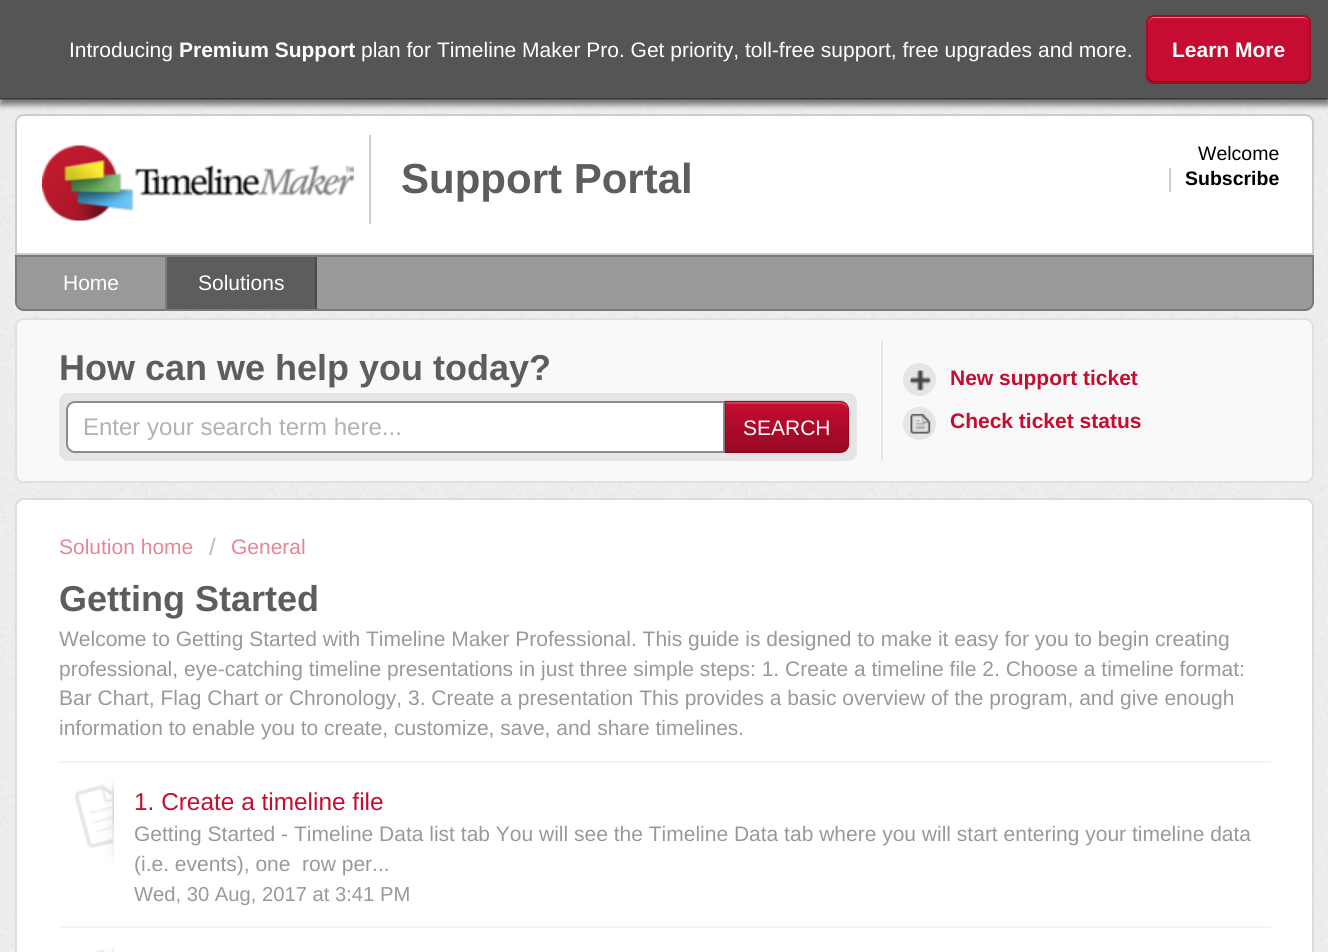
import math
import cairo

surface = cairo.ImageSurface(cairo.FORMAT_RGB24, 1328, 952)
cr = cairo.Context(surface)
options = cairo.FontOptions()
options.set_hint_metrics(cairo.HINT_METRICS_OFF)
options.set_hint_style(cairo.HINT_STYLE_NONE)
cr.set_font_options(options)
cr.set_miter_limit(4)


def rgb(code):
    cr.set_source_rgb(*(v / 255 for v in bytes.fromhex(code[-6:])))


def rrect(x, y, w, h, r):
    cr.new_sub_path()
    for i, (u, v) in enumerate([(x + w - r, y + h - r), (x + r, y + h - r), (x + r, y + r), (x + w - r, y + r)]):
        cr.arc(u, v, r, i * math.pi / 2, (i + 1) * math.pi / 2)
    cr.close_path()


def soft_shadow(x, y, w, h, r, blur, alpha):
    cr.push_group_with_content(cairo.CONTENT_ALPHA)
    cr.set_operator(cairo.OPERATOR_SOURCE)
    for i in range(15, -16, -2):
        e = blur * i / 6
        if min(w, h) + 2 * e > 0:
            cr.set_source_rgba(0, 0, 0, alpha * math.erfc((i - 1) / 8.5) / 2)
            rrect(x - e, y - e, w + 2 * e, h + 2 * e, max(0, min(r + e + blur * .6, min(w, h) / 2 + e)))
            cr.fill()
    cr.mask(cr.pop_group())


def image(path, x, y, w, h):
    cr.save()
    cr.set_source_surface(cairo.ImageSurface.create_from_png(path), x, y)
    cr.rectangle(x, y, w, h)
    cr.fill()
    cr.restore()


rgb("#efefef")
cr.paint()
image("img/1.png", 0, 99, 1328, 853)
rgb("#ffffff")
cr.new_path()
cr.move_to(24, 114)
cr.line_to(1305, 114)
cr.curve_to(1310, 114, 1314, 118, 1314, 123)
cr.line_to(1314, 255)
cr.line_to(15, 255)
cr.line_to(15, 123)
cr.curve_to(15, 118, 19, 114, 24, 114)
cr.close_path()
cr.fill()
cr.new_path()
cr.move_to(24, 115)
cr.line_to(1305, 115)
cr.curve_to(1309.5, 115, 1313, 118.5, 1313, 123)
cr.line_to(1313, 254)
cr.line_to(16, 254)
cr.line_to(16, 123)
cr.curve_to(16, 118.5, 19.5, 115, 24, 115)
cr.close_path()
cr.set_source_rgba(0, 0, 0, 0.2)
cr.stroke()
rgb("#000000")
soft_shadow(0, 6, 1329, 99, 0, 3, 0.5)
rgb("#555555")
cr.rectangle(0, 0, 1328, 99)
cr.fill()
cr.set_source_rgba(0, 0, 0, 0.3)
cr.rectangle(0, 98, 1328, 2)
cr.fill()
rgb("#c60c30")
rrect(1146, 15, 165, 69, 8)
cr.fill()
rgb("#630618")
cr.new_path()
cr.move_to(1148, 75)
cr.line_to(1148, 77)
cr.curve_to(1148, 80, 1151, 83, 1154, 83)
cr.line_to(1304, 83)
cr.curve_to(1307, 83, 1310, 80, 1310, 77)
cr.line_to(1310, 75)
cr.curve_to(1310, 78, 1307, 81, 1304, 81)
cr.line_to(1154, 81)
cr.curve_to(1150, 81, 1148, 78, 1148, 75)
cr.close_path()
cr.fill()
rgb("#e38698")
cr.new_path()
cr.move_to(1154, 18)
cr.line_to(1304, 18)
cr.curve_to(1307, 18, 1310, 21, 1310, 24)
cr.line_to(1310, 23)
cr.curve_to(1310, 20, 1307, 17, 1304, 17)
cr.line_to(1154, 17)
cr.curve_to(1151, 17, 1148, 20, 1148, 23)
cr.line_to(1148, 24)
cr.curve_to(1148, 21, 1150, 18, 1154, 18)
cr.close_path()
cr.fill()
rrect(1147, 16, 163, 67, 7)
rgb("#a70a29")
cr.stroke()
image("img/2.png", 42, 145, 312, 76)
rgb("#cccccc")
cr.rectangle(369, 135, 2, 89)
cr.fill()
cr.rectangle(1169, 168, 2, 24)
cr.fill()
rgb("#999999")
cr.new_path()
cr.move_to(15, 255)
cr.line_to(1314, 255)
cr.line_to(1314, 302)
cr.curve_to(1314, 307, 1310, 311, 1305, 311)
cr.line_to(24, 311)
cr.curve_to(19, 311, 15, 307, 15, 302)
cr.close_path()
cr.fill()
cr.new_path()
cr.move_to(16, 256)
cr.line_to(1313, 256)
cr.line_to(1313, 302)
cr.curve_to(1313, 306.5, 1309.5, 310, 1305, 310)
cr.line_to(24, 310)
cr.curve_to(19.5, 310, 16, 306.5, 16, 302)
cr.close_path()
cr.set_source_rgba(0, 0, 0, 0.2)
cr.stroke()
for x, y, w, h, color in [
    (165, 257, 2, 52, "#7a7a7a"),
    (167, 257, 148, 52, "#5d5d5d"),
    (315, 257, 2, 52, "#4a4a4a"),
]:
    rgb(color)
    cr.rectangle(x, y, w, h)
    cr.fill()
rgb("#f9f9f9")
rrect(16, 319, 1297, 163, 8)
cr.fill_preserve()
rgb("#e0e0e0")
cr.stroke()
rgb("#e5e5e5")
cr.rectangle(881, 341, 2, 120)
cr.fill()
rrect(59, 393, 798, 68, 9)
cr.fill()
rgb("#ffffff")
cr.new_path()
cr.move_to(75, 402)
cr.line_to(724, 402)
cr.line_to(724, 452)
cr.line_to(75, 452)
cr.curve_to(70.5, 452, 67, 448.5, 67, 444)
cr.line_to(67, 410)
cr.curve_to(67, 405.5, 70.5, 402, 75, 402)
cr.close_path()
cr.fill_preserve()
rgb("#8c8c8c")
cr.stroke()
rgb("#000000")
soft_shadow(725, 402, 124, 53, 9, 1.5, 0.05)
rgb("#b30b2b")
cr.new_path()
cr.move_to(725, 401)
cr.line_to(840, 401)
cr.curve_to(845, 401, 849, 405, 849, 410)
cr.line_to(849, 444)
cr.curve_to(849, 449, 845, 453, 840, 453)
cr.line_to(725, 453)
cr.close_path()
cr.fill()
cr.save()
cr.new_path()
cr.move_to(725, 401)
cr.line_to(840, 401)
cr.curve_to(845, 401, 849, 405, 849, 410)
cr.line_to(849, 444)
cr.curve_to(849, 449, 845, 453, 840, 453)
cr.line_to(725, 453)
cr.close_path()
cr.clip()
gradient = cairo.LinearGradient(787, 402, 787, 452)
gradient.add_color_stop_rgba(0, 0.776, 0.047, 0.188, 1)
gradient.add_color_stop_rgba(1, 0.588, 0.035, 0.141, 1)
cr.set_source(gradient)
cr.rectangle(725, 402, 124, 50)
cr.fill()
cr.restore()
cr.set_source_rgba(1, 1, 1, 0.2)
cr.new_path()
cr.move_to(726, 404)
cr.line_to(840, 404)
cr.curve_to(844, 404, 848, 407, 848, 411)
cr.line_to(848, 410)
cr.curve_to(848, 406, 844, 402, 840, 402)
cr.line_to(726, 402)
cr.close_path()
cr.fill()
cr.set_source_rgba(0, 0, 0, 0.1)
cr.new_path()
cr.move_to(726, 402)
cr.line_to(724, 400)
cr.line_to(843, 400)
cr.line_to(846, 403)
cr.line_to(845, 404)
cr.curve_to(844, 403, 842, 402, 840, 402)
cr.close_path()
cr.fill()
cr.new_path()
cr.move_to(849, 444)
cr.line_to(849, 410)
cr.curve_to(849, 408, 848, 405, 846, 403)
cr.line_to(845, 404)
cr.curve_to(847, 405, 848, 407, 848, 410)
cr.line_to(848, 444)
cr.curve_to(848, 446, 847, 448, 846, 450)
cr.curve_to(848, 449, 849, 446, 849, 444)
cr.close_path()
cr.fill()
cr.set_source_rgba(0, 0, 0, 0.25)
cr.new_path()
cr.move_to(724, 453)
cr.line_to(840, 453)
cr.curve_to(842, 453, 845, 452, 846, 450)
cr.curve_to(844, 451, 842, 452, 840, 452)
cr.line_to(726, 452)
cr.close_path()
cr.fill()
cr.set_source_rgba(0, 0, 0, 0.1)
cr.new_path()
cr.move_to(726, 402)
cr.line_to(724, 400)
cr.line_to(724, 453)
cr.line_to(726, 452)
cr.close_path()
cr.fill()
rgb("#e5e5e5")
cr.arc(919.5, 379.5, 16.5, 0, 2 * math.pi)
cr.fill()
image("img/3.png", 909, 369, 22, 22)
cr.arc(919.5, 423.5, 16.5, 0, 2 * math.pi)
cr.fill()
image("img/4.png", 909, 412, 22, 22)
rgb("#ffffff")
rrect(16, 499, 1297, 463, 8)
cr.fill_preserve()
rgb("#dcdcdc")
cr.stroke()
rgb("#f3f3f3")
cr.rectangle(59, 761, 1212, 2)
cr.fill()
image("img/5.png", 75, 781, 39, 81)
cr.rectangle(59, 926, 1212, 2)
cr.fill()
image("img/6.png", 94, 946, 20, 6)
cr.select_font_face("Liberation Sans")
cr.set_font_size(21)
rgb("#ffffff")
cr.move_to(69, 57)
cr.show_text("Introducing")
cr.select_font_face("Liberation Sans", cairo.FONT_SLANT_NORMAL, cairo.FONT_WEIGHT_BOLD)
cr.move_to(179, 57)
cr.show_text("Premium Support")
cr.select_font_face("Liberation Sans")
cr.move_to(361, 57)
cr.show_text("plan for Timeline Maker Pro. Get priority, toll-free support, free upgrades and more.")
cr.select_font_face("Liberation Sans", cairo.FONT_SLANT_NORMAL, cairo.FONT_WEIGHT_BOLD)
cr.move_to(1172, 57)
cr.show_text("Learn More")
cr.set_font_size(42)
rgb("#5d5d5d")
cr.move_to(401, 193)
cr.show_text("Support Portal")
cr.select_font_face("Liberation Sans")
cr.set_font_size(19.5)
rgb("#000000")
cr.move_to(1198, 160)
cr.show_text("Welcome")
cr.select_font_face("Liberation Sans", cairo.FONT_SLANT_NORMAL, cairo.FONT_WEIGHT_BOLD)
cr.move_to(1185, 185)
cr.show_text("Subscribe")
cr.select_font_face("Liberation Sans")
cr.set_font_size(21)
rgb("#ffffff")
cr.move_to(63, 290)
cr.show_text("Home")
cr.move_to(198, 290)
cr.show_text("Solutions")
cr.select_font_face("Liberation Sans", cairo.FONT_SLANT_NORMAL, cairo.FONT_WEIGHT_BOLD)
cr.set_font_size(36)
rgb("#5d5d5d")
cr.move_to(59, 380)
cr.show_text("How can we help you today?")
cr.select_font_face("Liberation Sans")
cr.set_font_size(24)
rgb("#b2b2b2")
cr.move_to(83, 435)
cr.show_text("Enter your search term here...")
cr.set_font_size(21)
rgb("#ffffff")
cr.move_to(743, 435)
cr.show_text("SEARCH")
cr.select_font_face("Liberation Sans", cairo.FONT_SLANT_NORMAL, cairo.FONT_WEIGHT_BOLD)
rgb("#c60c30")
cr.move_to(950, 385)
cr.show_text("New support ticket")
cr.move_to(950, 428)
cr.show_text("Check ticket status")
cr.select_font_face("Liberation Sans")
rgb("#e38698")
cr.move_to(59, 554)
cr.show_text("Solution home")
cr.set_font_size(24)
rgb("#bbbbbb")
cr.move_to(209, 555)
cr.show_text("/")
cr.set_font_size(21)
rgb("#e38698")
cr.move_to(231, 554)
cr.show_text("General")
cr.select_font_face("Liberation Sans", cairo.FONT_SLANT_NORMAL, cairo.FONT_WEIGHT_BOLD)
cr.set_font_size(36)
rgb("#5d5d5d")
cr.move_to(59, 611)
cr.show_text("Getting Started")
cr.select_font_face("Liberation Sans")
cr.set_font_size(21)
rgb("#999999")
for x, y, s in [
    (59, 646, "Welcome to Getting Started with Timeline Maker Professional. This guide is designed to make it easy for you to begin creating"),
    (59, 676, "professional, eye-catching timeline presentations in just three simple steps: 1. Create a timeline file 2. Choose a timeline format:"),
    (59, 705, "Bar Chart, Flag Chart or Chronology, 3. Create a presentation This provides a basic overview of the program, and give enough"),
    (59, 735, "information to enable you to create, customize, save, and share timelines."),
]:
    cr.move_to(x, y)
    cr.show_text(s)
cr.set_font_size(24.4)
rgb("#c60c30")
cr.move_to(134, 810)
cr.show_text("1. Create a timeline file")
cr.set_font_size(21)
rgb("#999999")
cr.move_to(134, 841)
cr.show_text("Getting Started - Timeline Data list tab You will see the Timeline Data tab where you will start entering your timeline data")
cr.move_to(134, 871)
cr.show_text("(i.e. events), one  row per...")
cr.set_font_size(20.2)
cr.move_to(134, 901)
cr.show_text("Wed, 30 Aug, 2017 at 3:41 PM")
surface.write_to_png("page.png")
